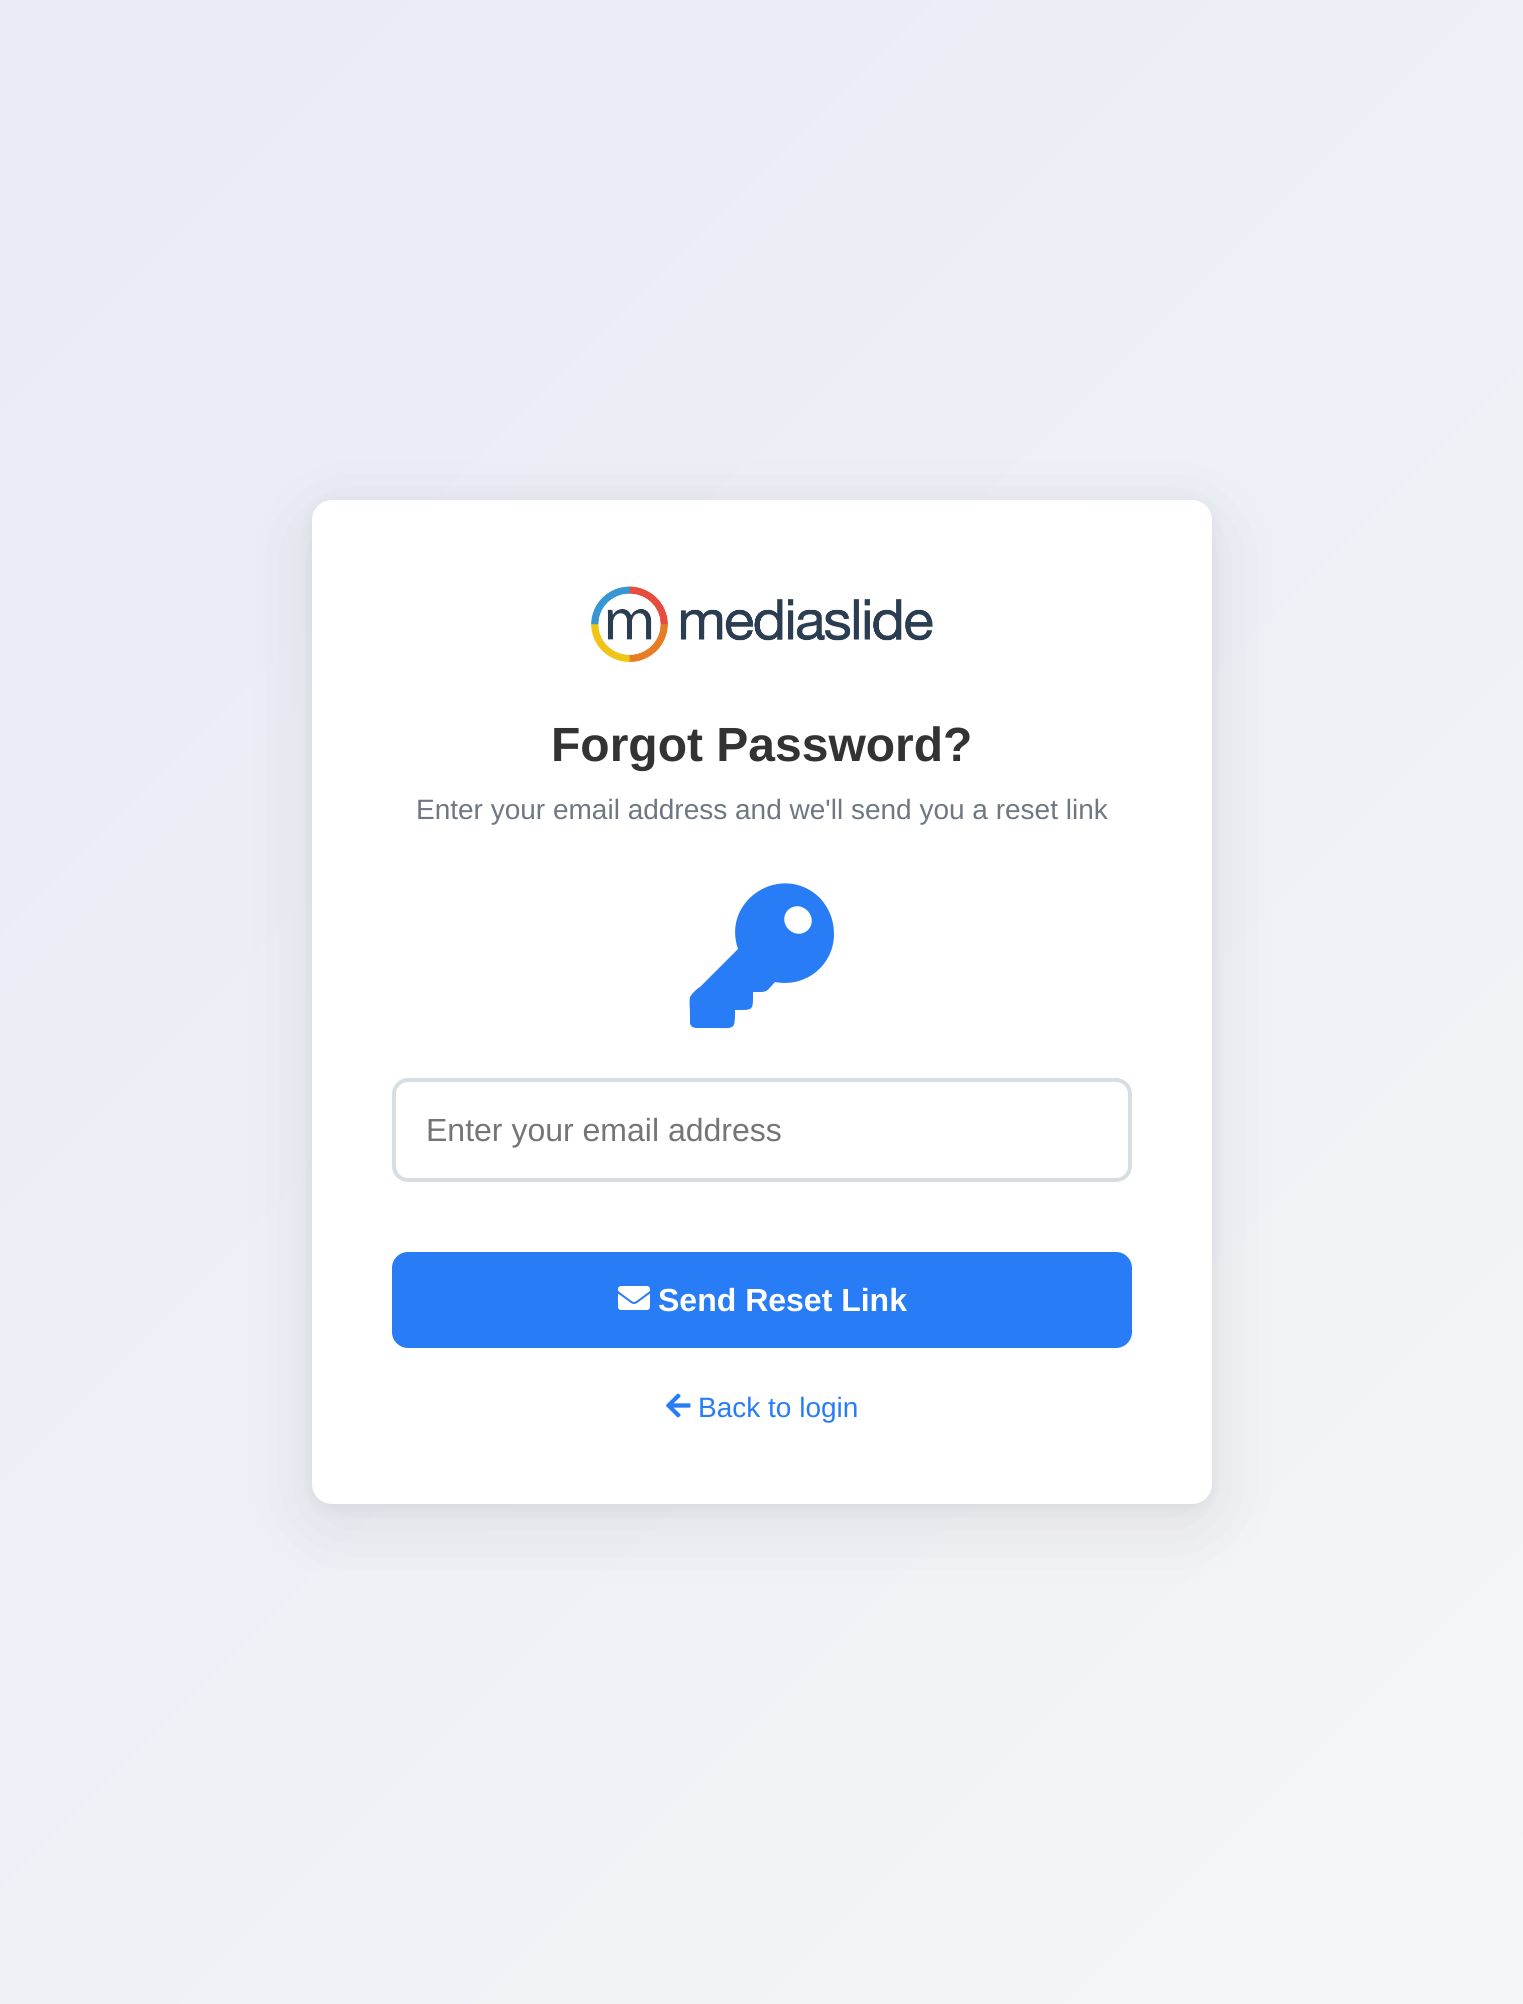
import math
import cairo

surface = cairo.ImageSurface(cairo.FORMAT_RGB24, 1523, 2004)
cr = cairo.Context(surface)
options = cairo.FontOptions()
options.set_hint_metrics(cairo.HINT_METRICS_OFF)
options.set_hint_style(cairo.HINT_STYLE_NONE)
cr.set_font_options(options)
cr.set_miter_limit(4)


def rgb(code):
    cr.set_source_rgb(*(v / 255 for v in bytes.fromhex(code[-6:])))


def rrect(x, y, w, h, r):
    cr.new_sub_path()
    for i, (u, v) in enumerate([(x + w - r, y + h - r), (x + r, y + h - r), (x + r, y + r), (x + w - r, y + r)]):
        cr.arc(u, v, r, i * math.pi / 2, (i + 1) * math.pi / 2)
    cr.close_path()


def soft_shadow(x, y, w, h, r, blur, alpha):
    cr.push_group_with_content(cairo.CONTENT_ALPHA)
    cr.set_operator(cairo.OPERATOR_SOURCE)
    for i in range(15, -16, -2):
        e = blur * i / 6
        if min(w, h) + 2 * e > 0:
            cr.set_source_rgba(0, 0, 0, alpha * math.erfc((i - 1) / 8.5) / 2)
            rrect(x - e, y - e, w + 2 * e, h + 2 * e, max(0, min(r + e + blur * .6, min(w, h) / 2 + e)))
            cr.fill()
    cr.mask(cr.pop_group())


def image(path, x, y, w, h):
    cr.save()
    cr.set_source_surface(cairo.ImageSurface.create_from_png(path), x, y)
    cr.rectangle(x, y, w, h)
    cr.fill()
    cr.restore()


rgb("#ffffff")
cr.paint()
gradient = cairo.LinearGradient(-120, 120, 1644, 1884)
gradient.add_color_stop_rgba(0, 0.91, 0.918, 0.965, 1)
gradient.add_color_stop_rgba(1, 0.961, 0.965, 0.969, 1)
cr.set_source(gradient)
cr.rectangle(0, 0, 1523, 2004)
cr.fill()
rgb("#000000")
soft_shadow(312, 504, 900, 1004, 20, 8, 0.06)
soft_shadow(312, 520, 900, 1004, 20, 40, 0.08)
rgb("#ffffff")
rrect(312, 500, 900, 1004, 20)
cr.fill()
image("img/1.png", 591, 586, 342, 76)
rgb("#287cf6")
cr.new_path()
cr.move_to(834, 934)
cr.curve_to(834, 965, 806, 988, 775, 982)
cr.curve_to(765, 993, 768, 992, 753, 992)
cr.curve_to(753, 1011, 754, 1010, 735, 1010)
cr.curve_to(735, 1031, 735, 1028, 712, 1028)
cr.line_to(702, 1028)
cr.curve_to(697, 1028, 691, 1029, 690, 1023)
cr.line_to(690, 1014)
cr.curve_to(690, 1010, 689, 1000, 690, 997)
cr.curve_to(692, 993, 699, 987, 700, 987)
cr.line_to(738, 949)
cr.curve_to(721, 900, 782, 861, 820, 898)
cr.curve_to(829, 908, 834, 920, 834, 934)
cr.close_path()
cr.move_to(788, 910)
cr.curve_to(776, 923, 795, 942, 808, 930)
cr.curve_to(820, 917, 801, 898, 788, 910)
cr.close_path()
cr.fill()
rrect(394, 1080, 736, 100, 14)
rgb("#d6dee2")
cr.set_line_width(4)
cr.stroke()
rgb("#287cf6")
rrect(392, 1252, 740, 96, 16)
cr.fill()
image("img/2.png", 618, 1286, 32, 24)
image("img/3.png", 666, 1393, 25, 25)
cr.select_font_face("Liberation Sans", cairo.FONT_SLANT_NORMAL, cairo.FONT_WEIGHT_BOLD)
cr.set_font_size(48)
rgb("#333333")
cr.move_to(551, 761)
cr.show_text("Forgot Password?")
cr.select_font_face("Liberation Sans")
cr.set_font_size(28)
rgb("#6f7782")
cr.move_to(416, 819)
cr.show_text("Enter your email address and we'll send you a reset link")
cr.set_font_size(32)
rgb("#757575")
cr.move_to(426, 1141)
cr.show_text("Enter your email address")
cr.select_font_face("Liberation Sans", cairo.FONT_SLANT_NORMAL, cairo.FONT_WEIGHT_BOLD)
rgb("#ffffff")
cr.move_to(658, 1311)
cr.show_text("Send Reset Link")
cr.select_font_face("Liberation Sans")
cr.set_font_size(28)
rgb("#287cf6")
cr.move_to(698, 1417)
cr.show_text("Back to login")
surface.write_to_png("page.png")
